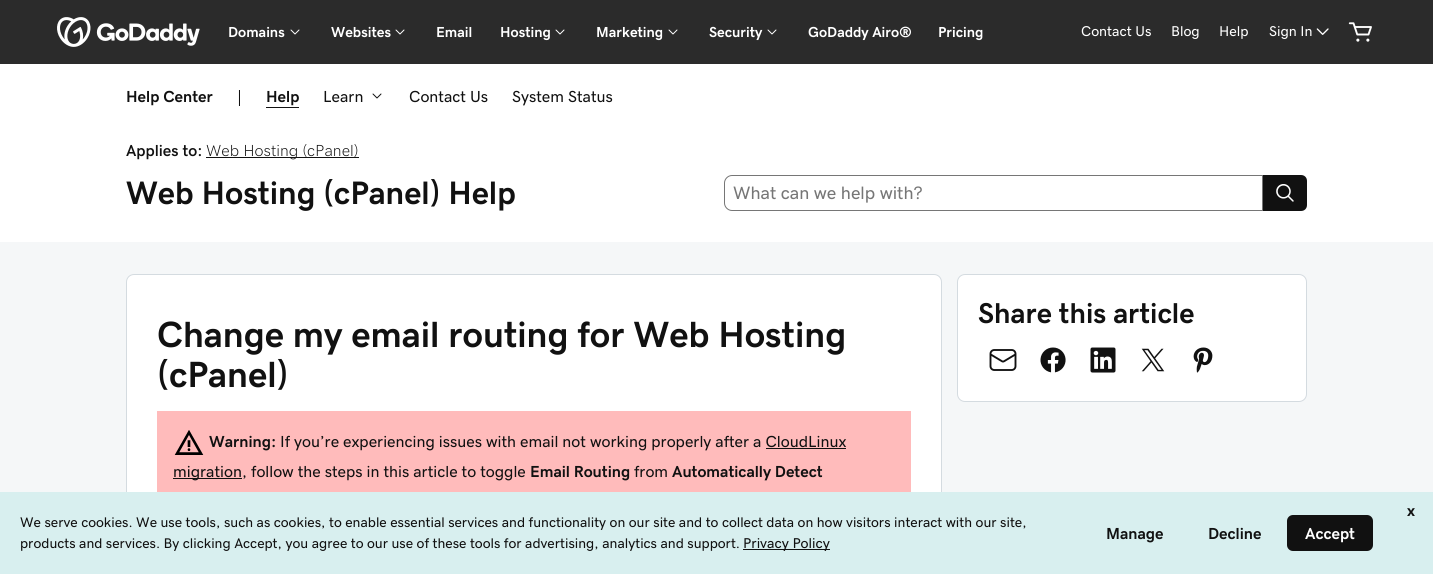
import math
import cairo

surface = cairo.ImageSurface(cairo.FORMAT_RGB24, 1433, 574)
cr = cairo.Context(surface)
options = cairo.FontOptions()
options.set_hint_metrics(cairo.HINT_METRICS_OFF)
options.set_hint_style(cairo.HINT_STYLE_NONE)
cr.set_font_options(options)
cr.set_miter_limit(4)


def rgb(code):
    cr.set_source_rgb(*(v / 255 for v in bytes.fromhex(code[-6:])))


def rrect(x, y, w, h, r):
    cr.new_sub_path()
    for i, (u, v) in enumerate([(x + w - r, y + h - r), (x + r, y + h - r), (x + r, y + r), (x + w - r, y + r)]):
        cr.arc(u, v, r, i * math.pi / 2, (i + 1) * math.pi / 2)
    cr.close_path()


def image(path, x, y, w, h):
    cr.save()
    cr.set_source_surface(cairo.ImageSurface.create_from_png(path), x, y)
    cr.rectangle(x, y, w, h)
    cr.fill()
    cr.restore()


rgb("#ffffff")
cr.paint()
rgb("#2b2b2b")
cr.rectangle(0, 0, 1433, 64)
cr.fill()
image("img/1.png", 57, 17, 143, 30)
image("img/2.png", 290, 29, 10, 6)
image("img/2.png", 395, 29, 10, 6)
image("img/2.png", 555, 29, 10, 6)
image("img/2.png", 668, 29, 10, 6)
image("img/2.png", 767, 29, 10, 6)
image("img/3.png", 1316, 28, 13, 7)
image("img/4.png", 1348, 22, 24, 20)
rgb("#111111")
cr.rectangle(266, 107, 33, 1)
cr.fill()
image("img/5.png", 372, 93, 10, 6)
cr.rectangle(206, 157, 153, 1)
cr.fill()
cr.new_path()
cr.move_to(732, 175.5)
cr.line_to(1262.5, 175.5)
cr.line_to(1262.5, 210.5)
cr.line_to(732, 210.5)
cr.curve_to(728, 210.5, 724.5, 207, 724.5, 203)
cr.line_to(724.5, 183)
cr.curve_to(724.5, 179, 728, 175.5, 732, 175.5)
cr.close_path()
rgb("#767676")
cr.set_line_width(1)
cr.stroke()
rgb("#111111")
cr.new_path()
cr.move_to(1263, 175)
cr.line_to(1301, 175)
cr.curve_to(1304.5, 175, 1307, 177.5, 1307, 181)
cr.line_to(1307, 205)
cr.curve_to(1307, 208.5, 1304.5, 211, 1301, 211)
cr.line_to(1263, 211)
cr.close_path()
cr.fill()
image("img/6.png", 1276, 184, 18, 18)
rgb("#f5f7f8")
cr.rectangle(0, 242, 1433, 250)
cr.fill()
rgb("#ffffff")
rrect(957.5, 274.5, 349, 127, 7.5)
cr.fill_preserve()
rgb("#d4dbe0")
cr.stroke()
image("img/7.png", 989, 349, 28, 22)
image("img/8.png", 1040, 347, 26, 26)
image("img/9.png", 1090, 347, 26, 26)
image("img/10.png", 1141, 348, 24, 24)
image("img/11.png", 1193, 347, 20, 26)
rgb("#ffffff")
rrect(126.5, 274.5, 815, 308, 7.5)
cr.fill_preserve()
rgb("#d4dbe0")
cr.stroke()
rgb("#ffbbbb")
cr.rectangle(157, 411, 754, 81)
cr.fill()
image("img/12.png", 174, 430, 30, 25)
for x, y, w, h, color in [
    (766, 448, 80, 1, "#111111"),
    (173, 478, 69, 1, "#111111"),
    (0, 492, 1433, 82, "#d8efef"),
    (743, 549, 87, 1, "#111111"),
]:
    rgb(color)
    cr.rectangle(x, y, w, h)
    cr.fill()
rrect(1287, 515, 86, 36, 6)
cr.fill()
cr.select_font_face("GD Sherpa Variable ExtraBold")
cr.set_font_size(14.5)
rgb("#ffffff")
for x, y, s in [
    (228, 37, "Domains"),
    (331, 37, "Websites"),
    (436, 37, "Email"),
    (500, 37, "Hosting"),
    (596, 37, "Marketing"),
    (709, 37, "Security"),
    (808, 37, "GoDaddy Airo®"),
    (938, 37, "Pricing"),
]:
    cr.move_to(x, y)
    cr.show_text(s)
cr.select_font_face("GD Sherpa Variable")
cr.set_font_size(14.25)
for x, y, s in [
    (1081, 36, "Contact Us"),
    (1171, 36, "Blog"),
    (1219, 36, "Help"),
    (1269, 36, "Sign In"),
]:
    cr.move_to(x, y)
    cr.show_text(s)
cr.select_font_face("GD Sherpa Variable", cairo.FONT_SLANT_NORMAL, cairo.FONT_WEIGHT_BOLD)
cr.set_font_size(16)
rgb("#111111")
cr.move_to(126, 102)
cr.show_text("Help Center")
cr.select_font_face("GD Sherpa Variable")
cr.move_to(237, 102)
cr.show_text("|")
cr.select_font_face("GD Sherpa Variable", cairo.FONT_SLANT_NORMAL, cairo.FONT_WEIGHT_BOLD)
cr.move_to(266, 102)
cr.show_text("Help")
cr.select_font_face("GD Sherpa Variable")
for x, y, s in [
    (323, 102, "Learn"),
    (409, 102, "Contact Us"),
    (512, 102, "System Status"),
]:
    cr.move_to(x, y)
    cr.show_text(s)
cr.select_font_face("GD Sherpa Variable SemiBold")
cr.move_to(126, 156)
cr.show_text("Applies to:")
cr.select_font_face("GD Sherpa Variable ExtraLight")
cr.move_to(206, 156)
cr.show_text("Web Hosting (cPanel)")
cr.select_font_face("GD Sherpa Variable", cairo.FONT_SLANT_NORMAL, cairo.FONT_WEIGHT_BOLD)
cr.set_font_size(32.5)
cr.move_to(126, 204)
cr.show_text("Web Hosting (cPanel) Help")
cr.select_font_face("GD Sherpa Variable")
cr.set_font_size(18)
rgb("#767676")
cr.move_to(733, 199)
cr.show_text("What can we help with?")
cr.select_font_face("GD Sherpa Variable ExtraBold")
cr.set_font_size(28.75)
rgb("#111111")
cr.move_to(978, 323)
cr.show_text("Share this article")
cr.set_font_size(36.5)
cr.move_to(157, 347)
cr.show_text("Change my email routing for Web Hosting")
cr.move_to(157, 387)
cr.show_text("(cPanel)")
cr.select_font_face("GD Sherpa Variable", cairo.FONT_SLANT_NORMAL, cairo.FONT_WEIGHT_BOLD)
cr.set_font_size(16)
cr.move_to(209, 447)
cr.show_text("Warning:")
cr.select_font_face("GD Sherpa Variable")
cr.move_to(280, 447)
cr.show_text("If you’re experiencing issues with email not working properly after a CloudLinux")
cr.move_to(173, 477)
cr.show_text("migration, follow the steps in this article to toggle")
cr.select_font_face("GD Sherpa Variable", cairo.FONT_SLANT_NORMAL, cairo.FONT_WEIGHT_BOLD)
cr.move_to(530, 477)
cr.show_text("Email Routing")
cr.select_font_face("GD Sherpa Variable")
cr.move_to(634, 477)
cr.show_text("from")
cr.select_font_face("GD Sherpa Variable", cairo.FONT_SLANT_NORMAL, cairo.FONT_WEIGHT_BOLD)
cr.move_to(672, 477)
cr.show_text("Automatically Detect")
cr.select_font_face("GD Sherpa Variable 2", cairo.FONT_SLANT_NORMAL, cairo.FONT_WEIGHT_BOLD)
cr.move_to(1407, 516)
cr.show_text("x")
cr.select_font_face("GD Sherpa Variable")
cr.set_font_size(14)
cr.move_to(20, 527)
cr.show_text("We serve cookies. We use tools, such as cookies, to enable essential services and functionality on our site and to collect data on how visitors interact with our site,")
cr.move_to(20, 548)
cr.show_text("products and services. By clicking Accept, you agree to our use of these tools for advertising, analytics and support.")
cr.set_font_size(14.25)
cr.move_to(743, 548)
cr.show_text("Privacy Policy")
cr.select_font_face("GD Sherpa Variable 2", cairo.FONT_SLANT_NORMAL, cairo.FONT_WEIGHT_BOLD)
cr.set_font_size(16)
cr.move_to(1106, 539)
cr.show_text("Manage")
cr.move_to(1208, 539)
cr.show_text("Decline")
rgb("#ffffff")
cr.move_to(1305, 539)
cr.show_text("Accept")
surface.write_to_png("page.png")
